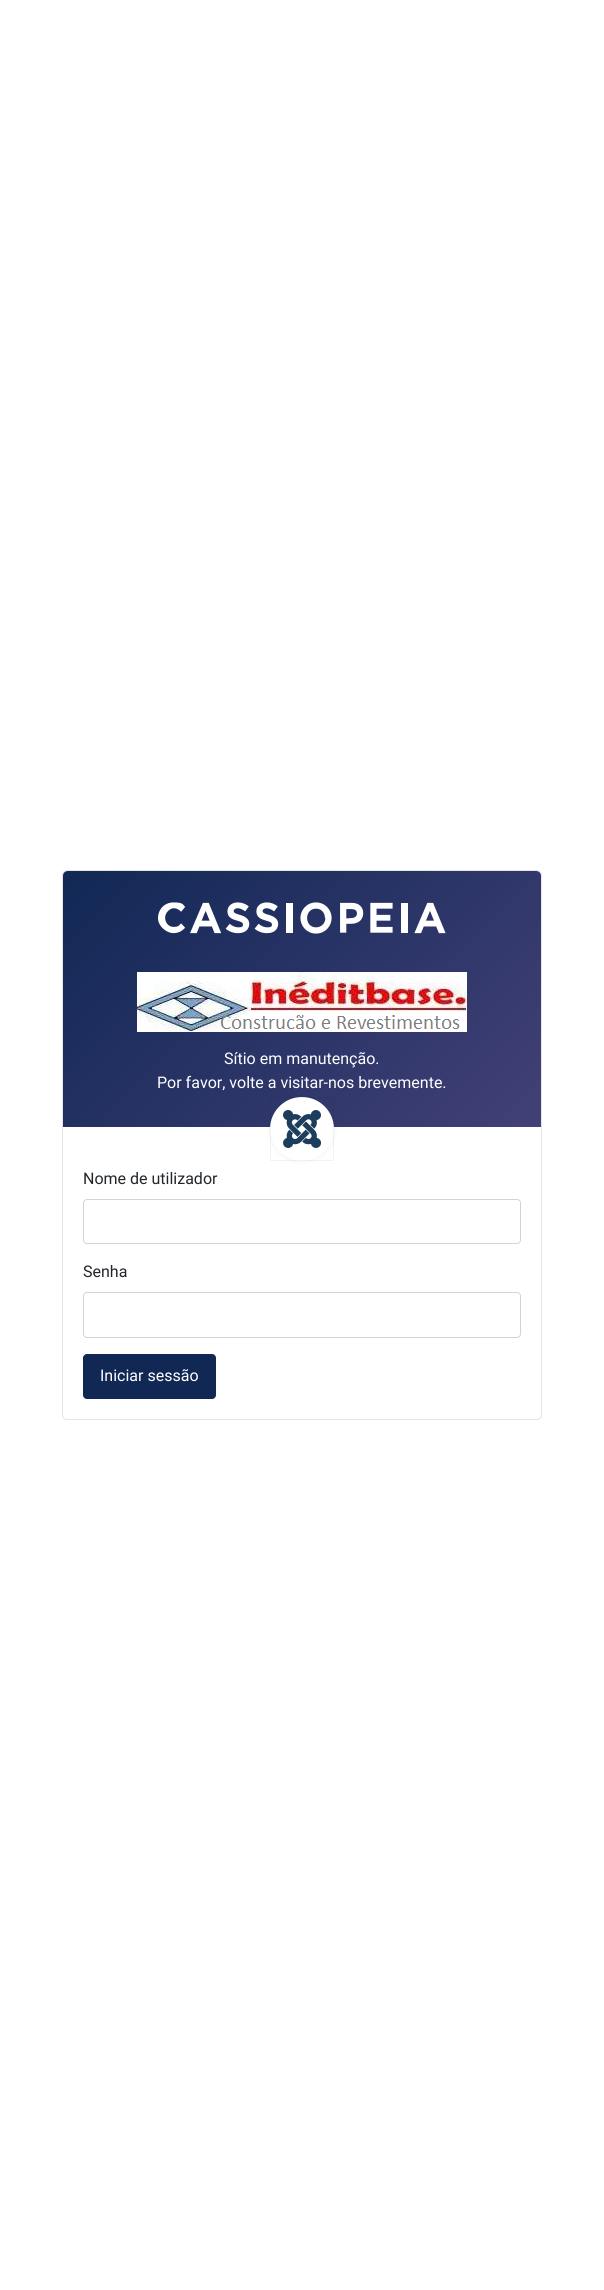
import math
import cairo

surface = cairo.ImageSurface(cairo.FORMAT_RGB24, 604, 2290)
cr = cairo.Context(surface)
options = cairo.FontOptions()
options.set_hint_metrics(cairo.HINT_METRICS_OFF)
options.set_hint_style(cairo.HINT_STYLE_NONE)
cr.set_font_options(options)
cr.set_miter_limit(4)


def rgb(code):
    cr.set_source_rgb(*(v / 255 for v in bytes.fromhex(code[-6:])))


def rrect(x, y, w, h, r):
    cr.new_sub_path()
    for i, (u, v) in enumerate([(x + w - r, y + h - r), (x + r, y + h - r), (x + r, y + r), (x + w - r, y + r)]):
        cr.arc(u, v, r, i * math.pi / 2, (i + 1) * math.pi / 2)
    cr.close_path()


def soft_shadow(x, y, w, h, r, blur, alpha):
    cr.push_group_with_content(cairo.CONTENT_ALPHA)
    cr.set_operator(cairo.OPERATOR_SOURCE)
    for i in range(15, -16, -2):
        e = blur * i / 6
        if min(w, h) + 2 * e > 0:
            cr.set_source_rgba(0, 0, 0, alpha * math.erfc((i - 1) / 8.5) / 2)
            rrect(x - e, y - e, w + 2 * e, h + 2 * e, max(0, min(r + e + blur * .6, min(w, h) / 2 + e)))
            cr.fill()
    cr.mask(cr.pop_group())


def image(path, x, y, w, h):
    cr.save()
    cr.set_source_surface(cairo.ImageSurface.create_from_png(path), x, y)
    cr.rectangle(x, y, w, h)
    cr.fill()
    cr.restore()


rgb("#ffffff")
cr.paint()
rrect(62.5, 870.5, 479, 549, 4.5)
rgb("#e5e5e5")
cr.set_line_width(1)
cr.stroke()
gradient = cairo.LinearGradient(119, 816, 486, 1183)
gradient.add_color_stop_rgba(0, 0.067, 0.157, 0.333, 1)
gradient.add_color_stop_rgba(1, 0.259, 0.251, 0.467, 1)
cr.set_source(gradient)
cr.new_path()
cr.move_to(68, 871)
cr.line_to(536, 871)
cr.curve_to(539, 871, 541, 873, 541, 876)
cr.line_to(541, 1127)
cr.line_to(63, 1127)
cr.line_to(63, 876)
cr.curve_to(63, 873, 65, 871, 68, 871)
cr.close_path()
cr.fill()
image("img/1.png", 158, 902, 288, 32)
image("img/2.png", 137, 972, 330, 60)
rgb("#000000")
soft_shadow(270, 1097, 64, 64, 32, 2.5, 0.07)
rgb("#ffffff")
cr.arc(302, 1129, 32, 0, 2 * math.pi)
cr.fill()
cr.rectangle(270.5, 1097.5, 63, 63)
cr.set_source_rgba(0, 0, 0, 0.05)
cr.stroke()
image("img/3.png", 283, 1110, 38, 38)
rrect(83.5, 1199.5, 437, 44, 3.5)
rgb("#ced4da")
cr.stroke()
rrect(83.5, 1292.5, 437, 45, 3.5)
cr.stroke()
rgb("#112855")
rrect(83.5, 1354.5, 132, 44, 3.5)
cr.fill_preserve()
cr.stroke()
cr.select_font_face("Roboto")
cr.set_font_size(16)
rgb("#ffffff")
cr.move_to(224, 1064)
cr.show_text("Sítio em manutenção.")
cr.move_to(157, 1088)
cr.show_text("Por favor, volte a visitar-nos brevemente.")
rgb("#22262a")
cr.move_to(83, 1184)
cr.show_text("Nome de utilizador")
cr.move_to(83, 1277)
cr.show_text("Senha")
rgb("#ffffff")
cr.move_to(100, 1381)
cr.show_text("Iniciar sessão")
surface.write_to_png("page.png")
